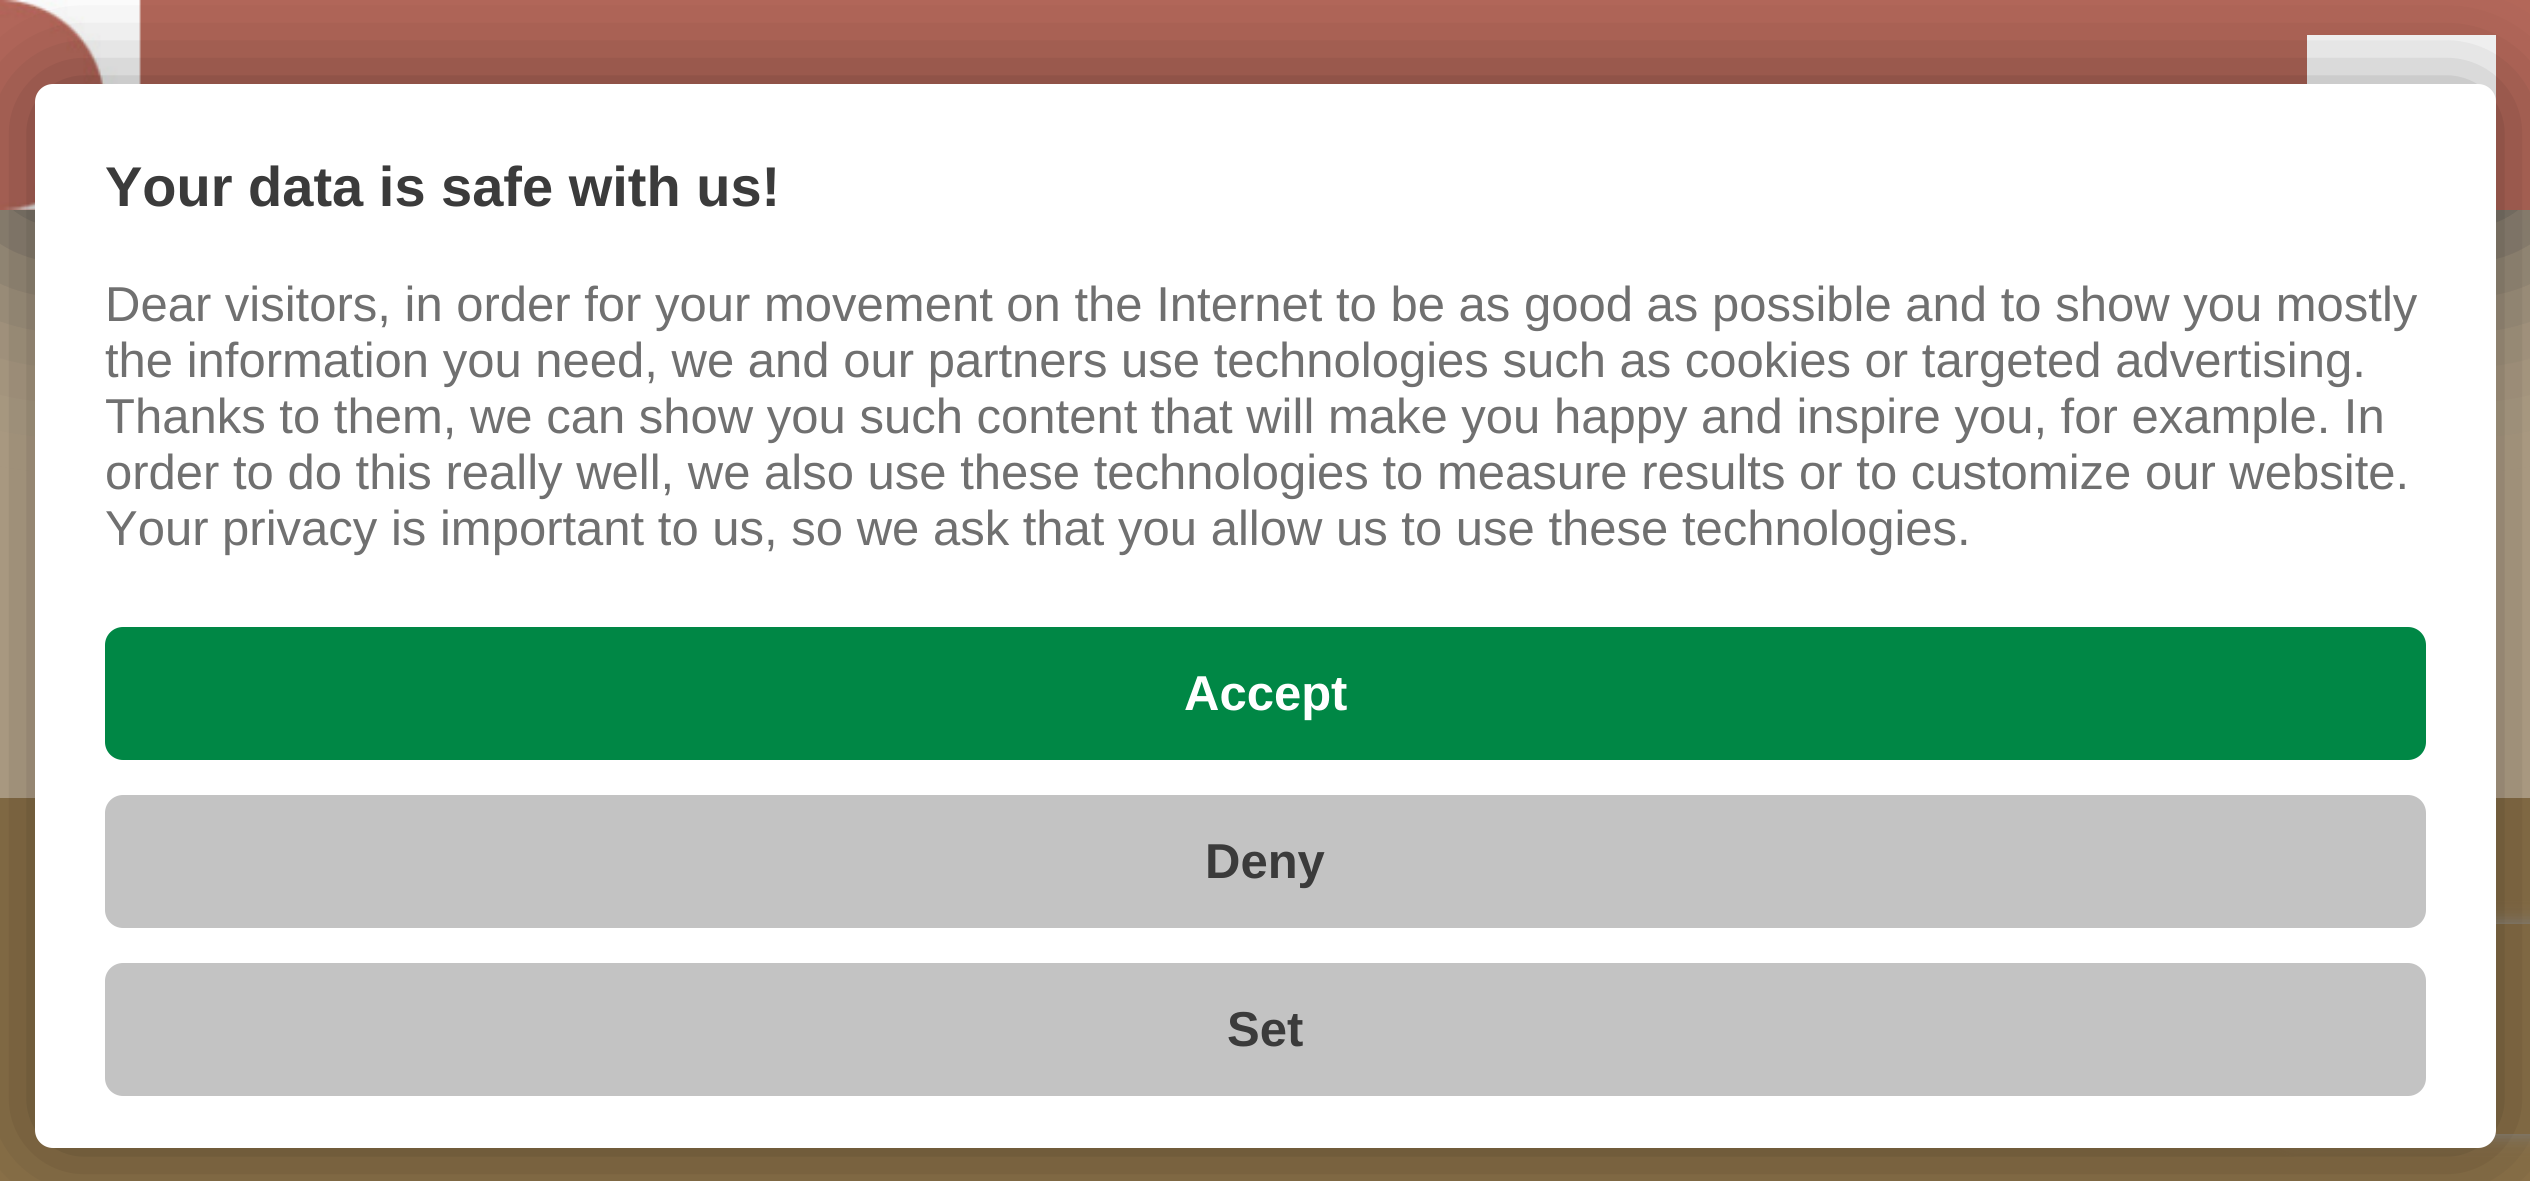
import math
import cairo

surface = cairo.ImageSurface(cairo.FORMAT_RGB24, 2530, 1181)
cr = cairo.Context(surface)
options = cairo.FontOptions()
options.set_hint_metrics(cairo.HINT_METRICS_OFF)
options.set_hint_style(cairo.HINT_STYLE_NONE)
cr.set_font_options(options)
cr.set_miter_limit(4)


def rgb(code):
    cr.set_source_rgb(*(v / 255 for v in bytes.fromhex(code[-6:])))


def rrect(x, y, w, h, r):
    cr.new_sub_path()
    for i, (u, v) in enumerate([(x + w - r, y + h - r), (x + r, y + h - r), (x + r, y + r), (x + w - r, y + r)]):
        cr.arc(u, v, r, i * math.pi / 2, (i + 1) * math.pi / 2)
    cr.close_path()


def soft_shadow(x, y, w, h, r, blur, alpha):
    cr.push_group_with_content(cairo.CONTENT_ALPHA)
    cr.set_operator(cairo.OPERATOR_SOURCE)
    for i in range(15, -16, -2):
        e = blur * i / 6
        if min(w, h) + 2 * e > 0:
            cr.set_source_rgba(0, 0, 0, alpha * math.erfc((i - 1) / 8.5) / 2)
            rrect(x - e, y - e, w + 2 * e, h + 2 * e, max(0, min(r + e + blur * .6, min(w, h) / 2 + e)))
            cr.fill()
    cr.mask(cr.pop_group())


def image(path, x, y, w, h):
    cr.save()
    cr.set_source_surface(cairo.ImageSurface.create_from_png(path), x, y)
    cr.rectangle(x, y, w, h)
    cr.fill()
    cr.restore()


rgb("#baa88e")
cr.paint()
rgb("#4f4f4f")
soft_shadow(0, 0, 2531, 210, 0, 105, 1)
rgb("#b4685a")
cr.rectangle(0, 0, 2530, 210)
cr.fill()
image("img/1.png", 0, 0, 141, 210)
rgb("#ffffff")
cr.rectangle(2307, 35, 189, 67)
cr.fill()
rgb("#8d734a")
cr.rectangle(0, 798, 2530, 383)
cr.fill()
rgb("#000000")
soft_shadow(35, 84, 2461, 1064, 18, 52.5, 0.4)
cr.save()
cr.set_fill_rule(cairo.FILL_RULE_EVEN_ODD)
cr.new_path()
cr.move_to(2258, 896)
cr.line_to(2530, 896)
cr.line_to(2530, 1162)
cr.line_to(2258, 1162)
cr.close_path()
cr.move_to(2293, 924)
cr.line_to(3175, 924)
cr.curve_to(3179, 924, 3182, 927, 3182, 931)
cr.line_to(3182, 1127)
cr.curve_to(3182, 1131, 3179, 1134, 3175, 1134)
cr.line_to(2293, 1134)
cr.curve_to(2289, 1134, 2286, 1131, 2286, 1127)
cr.line_to(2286, 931)
cr.curve_to(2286, 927, 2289, 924, 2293, 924)
cr.close_path()
cr.clip()
rgb("#808080")
soft_shadow(2286, 924, 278, 210, 7, 9, 1)
cr.restore()
rgb("#ffffff")
rrect(35, 84, 2461, 1064, 18)
cr.fill()
rgb("#008745")
rrect(105, 627, 2321, 133, 18)
cr.fill()
rgb("#c3c3c3")
rrect(105, 795, 2321, 133, 18)
cr.fill()
rrect(105, 963, 2321, 133, 18)
cr.fill()
cr.select_font_face("Liberation Sans", cairo.FONT_SLANT_NORMAL, cairo.FONT_WEIGHT_BOLD)
cr.set_font_size(56)
rgb("#3b3b3b")
cr.move_to(105, 206)
cr.show_text("Your data is safe with us!")
cr.select_font_face("Liberation Sans")
cr.set_font_size(49)
rgb("#707070")
for x, y, s in [
    (105, 321, "Dear visitors, in order for your movement on the Internet to be as good as possible and to show you mostly"),
    (105, 377, "the information you need, we and our partners use technologies such as cookies or targeted advertising."),
    (105, 433, "Thanks to them, we can show you such content that will make you happy and inspire you, for example. In"),
    (105, 489, "order to do this really well, we also use these technologies to measure results or to customize our website."),
    (105, 545, "Your privacy is important to us, so we ask that you allow us to use these technologies."),
]:
    cr.move_to(x, y)
    cr.show_text(s)
cr.select_font_face("Liberation Sans", cairo.FONT_SLANT_NORMAL, cairo.FONT_WEIGHT_BOLD)
rgb("#ffffff")
cr.move_to(1184, 710)
cr.show_text("Accept")
rgb("#3b3b3b")
cr.move_to(1205, 878)
cr.show_text("Deny")
cr.move_to(1227, 1046)
cr.show_text("Set")
surface.write_to_png("page.png")
